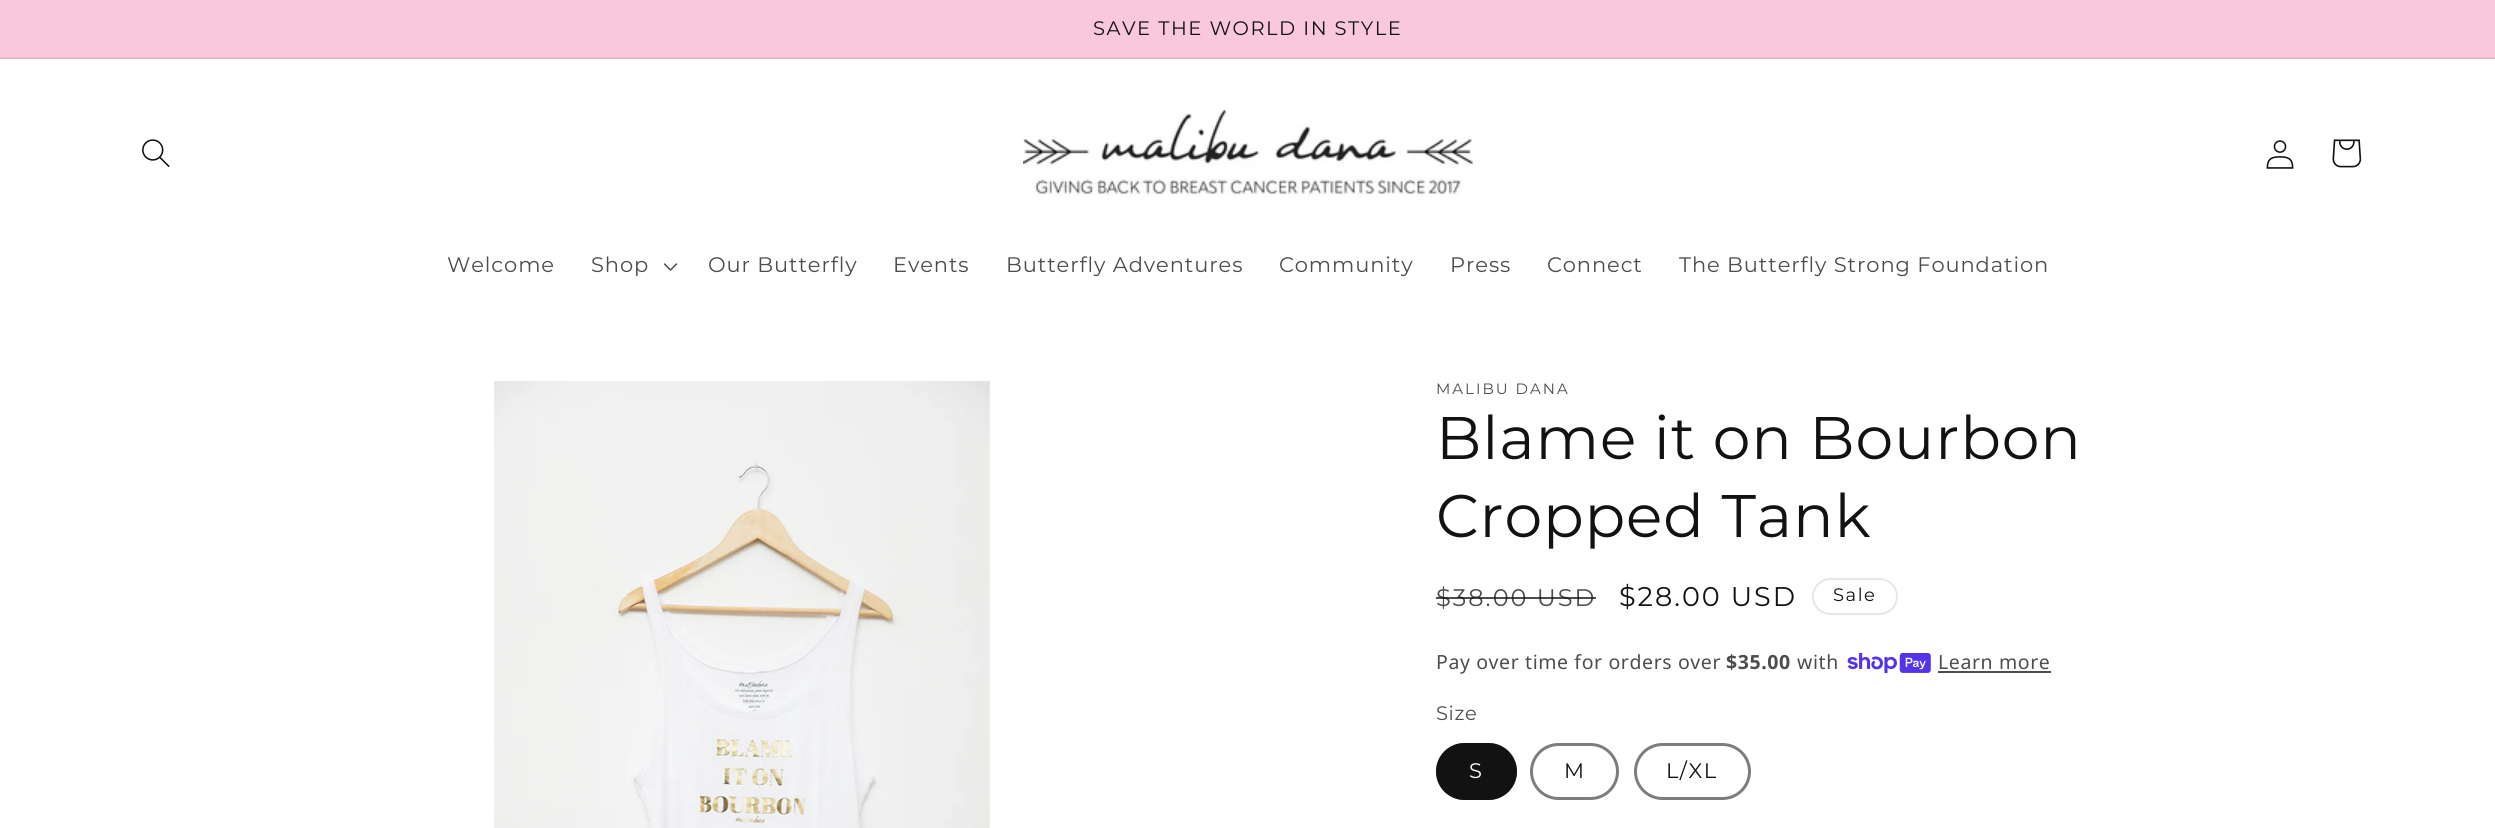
import math
import cairo

surface = cairo.ImageSurface(cairo.FORMAT_RGB24, 2495, 828)
cr = cairo.Context(surface)
options = cairo.FontOptions()
options.set_hint_metrics(cairo.HINT_METRICS_OFF)
options.set_hint_style(cairo.HINT_STYLE_NONE)
cr.set_font_options(options)
cr.set_miter_limit(4)


def rgb(code):
    cr.set_source_rgb(*(v / 255 for v in bytes.fromhex(code[-6:])))


def tracked(x, y, s, letter, word):
    cr.move_to(x, y)
    for ch in s:
        cr.show_text(ch)
        cr.rel_move_to(letter + word * (ch == ' '), 0)


def rrect(x, y, w, h, r):
    cr.new_sub_path()
    for i, (u, v) in enumerate([(x + w - r, y + h - r), (x + r, y + h - r), (x + r, y + r), (x + w - r, y + r)]):
        cr.arc(u, v, r, i * math.pi / 2, (i + 1) * math.pi / 2)
    cr.close_path()


def image(path, x, y, w, h):
    cr.save()
    cr.set_source_surface(cairo.ImageSurface.create_from_png(path), x, y)
    cr.rectangle(x, y, w, h)
    cr.fill()
    cr.restore()


rgb("#ffffff")
cr.paint()
rgb("#fac8dc")
cr.rectangle(0, 0, 2495, 57)
cr.fill()
rgb("#e7b9cc")
cr.rectangle(0, 57, 2495, 2)
cr.fill()
image("img/1.png", 142, 139, 28, 28)
image("img/2.png", 1023, 109, 450, 87)
image("img/3.png", 2266, 140, 28, 29)
image("img/4.png", 2332, 139, 30, 29)
image("img/5.png", 663, 263, 15, 8)
image("img/6.png", 494, 381, 496, 447)
rrect(1813, 579, 84, 35, 17.5)
rgb("#e7e7e7")
cr.stroke()
image("img/7.png", 1847, 653, 84, 21)
rgb("#4d4d4d")
cr.rectangle(1938, 671, 113, 2)
cr.fill()
rgb("#121212")
rrect(1436, 743, 81, 57, 28.5)
cr.fill()
rrect(1437.5, 744.5, 78, 54, 27)
cr.set_source_rgba(0.071, 0.071, 0.071, 0.55)
cr.set_line_width(3)
cr.stroke()
rrect(1531.5, 744.5, 86, 54, 27)
rgb("#7d7d7d")
cr.stroke()
rrect(1635.5, 744.5, 114, 54, 27)
cr.stroke()
cr.select_font_face("Montserrat Thin")
cr.set_font_size(19.5)
rgb("#121212")
tracked(1093, 35, "SAVE THE WORLD IN STYLE", 1.5, 0)
cr.set_font_size(21)
rgb("#4d4d4d")
for x, y, s in [
    (447, 272, "Welcome"),
    (591, 272, "Shop"),
    (708, 272, "Our Butterfly"),
    (893, 272, "Events"),
    (1006, 272, "Butterfly Adventures"),
    (1279, 272, "Community"),
    (1450, 272, "Press"),
    (1547, 272, "Connect"),
    (1679, 272, "The Butterfly Strong Foundation"),
]:
    tracked(x, y, s, 0.9, 0)
cr.set_font_size(15)
tracked(1436, 394, "MALIBU DANA", 2, 0)
cr.set_font_size(60)
rgb("#121212")
tracked(1436, 459, "Blame it on Bourbon", 0.9, 0)
tracked(1436, 537, "Cropped Tank", 0.9, 0)
cr.set_font_size(24)
rgb("#4d4d4d")
tracked(1436, 606, "$38.00 USD", 2, 0)
cr.set_source_rgba(0.071, 0.071, 0.071, 0.75)
cr.rectangle(1436, 597, 160, 2)
cr.fill()
cr.set_font_size(27)
rgb("#121212")
tracked(1619, 606, "$28.00 USD", 2, 0)
cr.set_font_size(18)
tracked(1833, 601, "Sale", 1.5, 0)
cr.select_font_face("Noto Sans")
cr.set_font_size(19.5)
rgb("#4d4d4d")
tracked(1436, 669, "Pay over time for orders over", 0.6, 0)
cr.select_font_face("Noto Sans", cairo.FONT_SLANT_NORMAL, cairo.FONT_WEIGHT_BOLD)
tracked(1726, 669, "$35.00", 0.6, 0)
cr.select_font_face("Noto Sans")
tracked(1797, 669, "with", 0.6, 0)
tracked(1938, 669, "Learn more", 0.6, 0)
cr.select_font_face("Montserrat Thin")
tracked(1436, 720, "Size", 0.6, 0)
cr.set_font_size(21)
rgb("#ffffff")
tracked(1469, 778, "S", 1.5, 0)
rgb("#121212")
tracked(1564, 778, "M", 1.5, 0)
tracked(1666, 778, "L/XL", 1.5, 0)
surface.write_to_png("page.png")
